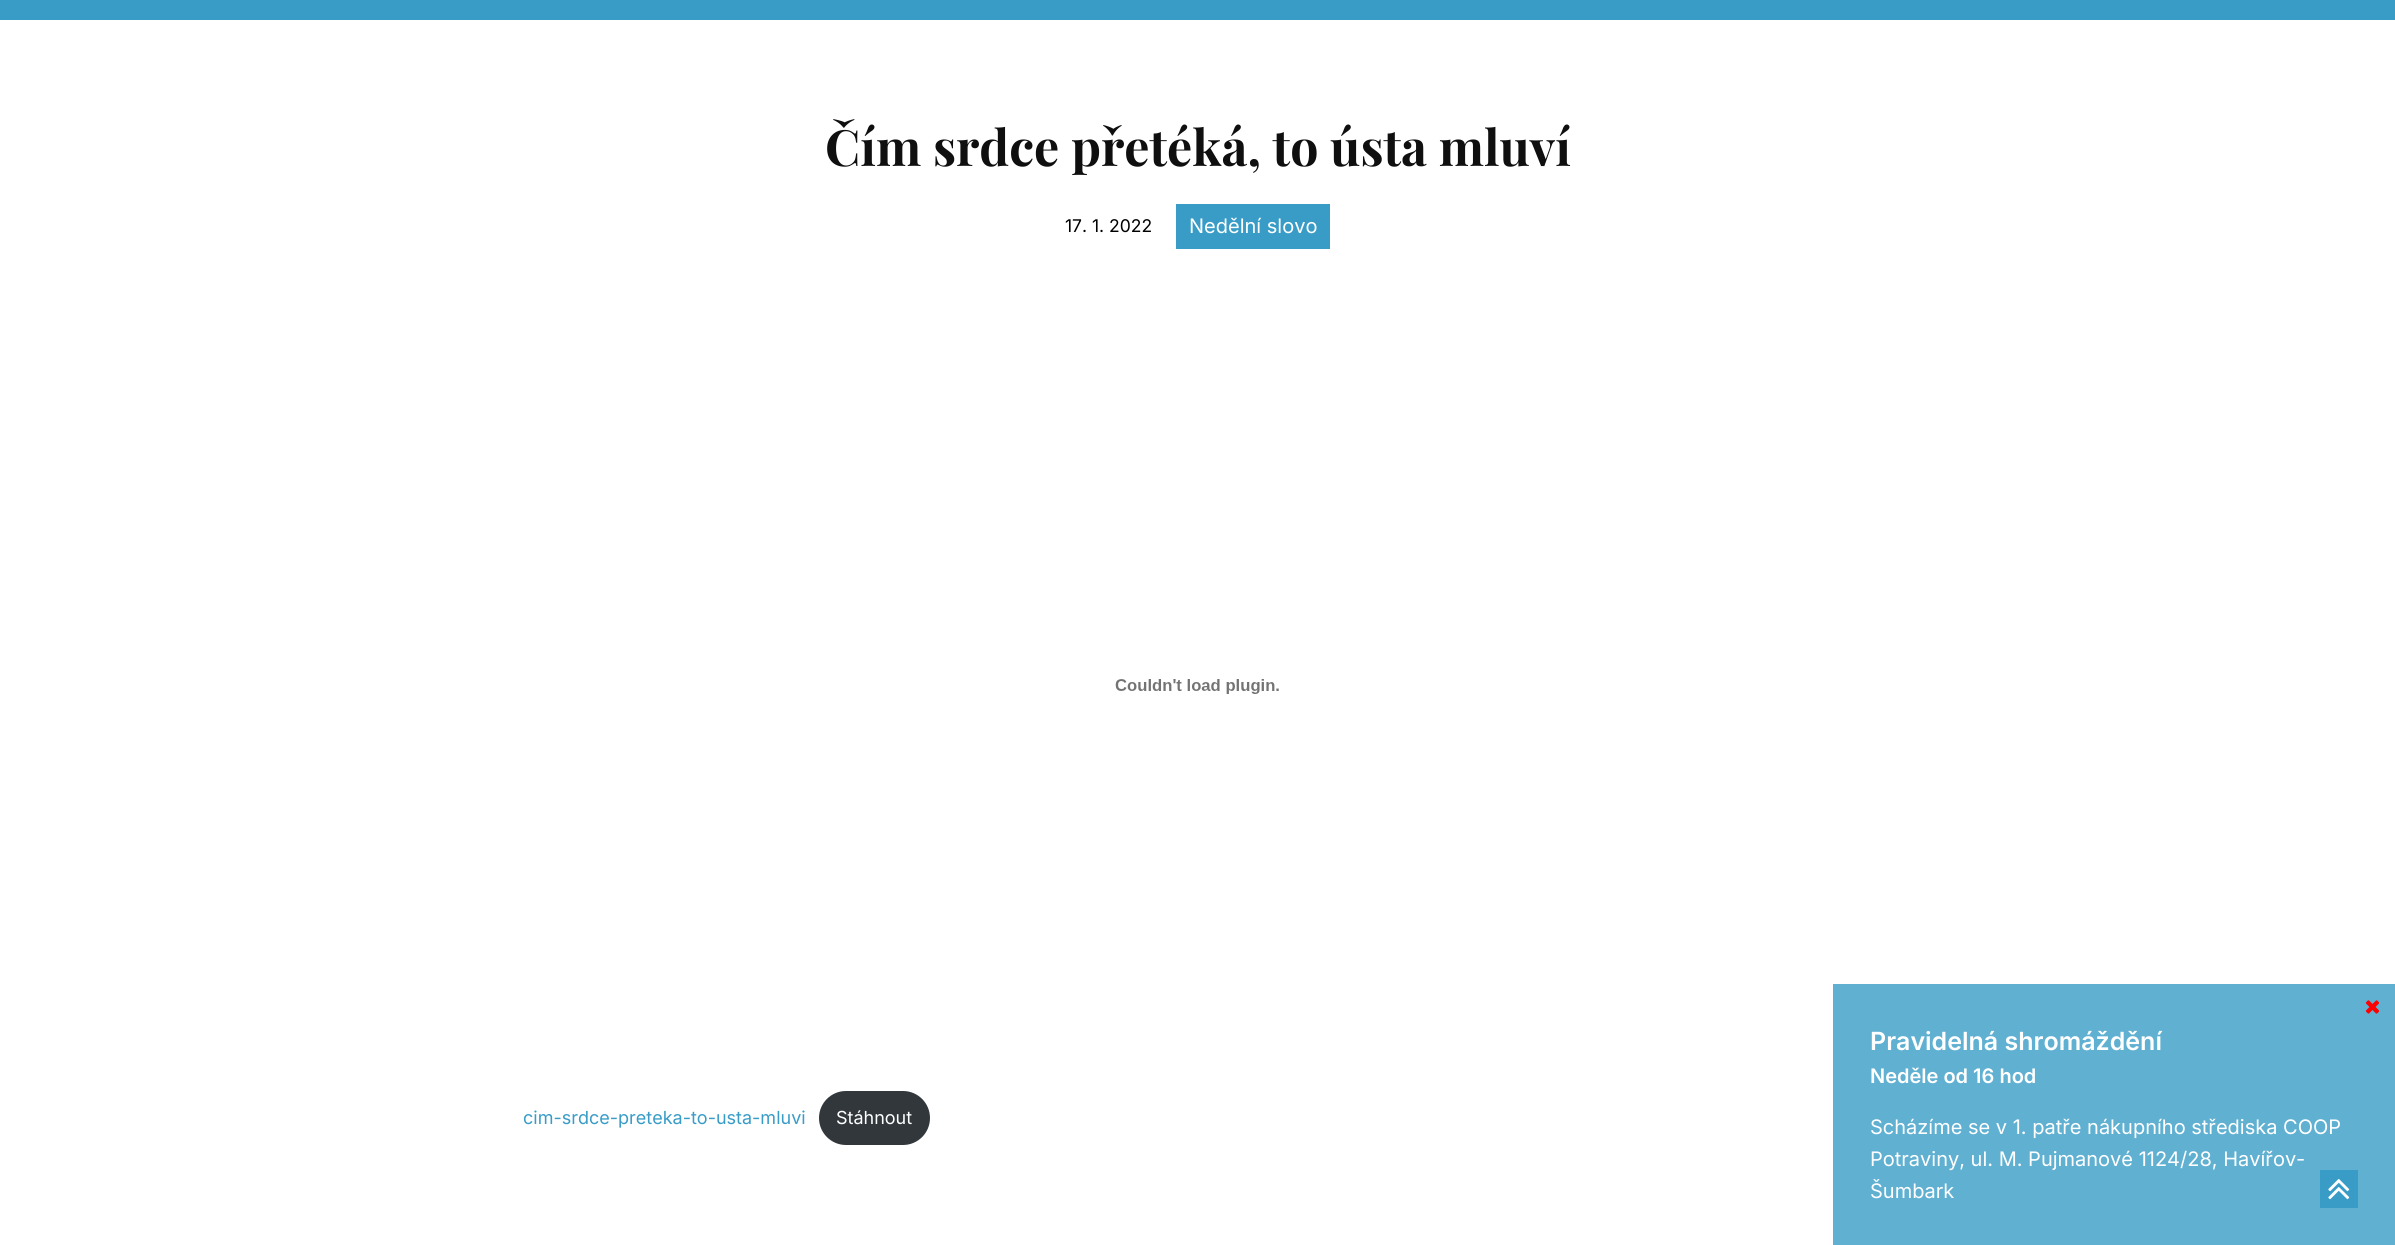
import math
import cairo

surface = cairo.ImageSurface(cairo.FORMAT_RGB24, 2395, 1245)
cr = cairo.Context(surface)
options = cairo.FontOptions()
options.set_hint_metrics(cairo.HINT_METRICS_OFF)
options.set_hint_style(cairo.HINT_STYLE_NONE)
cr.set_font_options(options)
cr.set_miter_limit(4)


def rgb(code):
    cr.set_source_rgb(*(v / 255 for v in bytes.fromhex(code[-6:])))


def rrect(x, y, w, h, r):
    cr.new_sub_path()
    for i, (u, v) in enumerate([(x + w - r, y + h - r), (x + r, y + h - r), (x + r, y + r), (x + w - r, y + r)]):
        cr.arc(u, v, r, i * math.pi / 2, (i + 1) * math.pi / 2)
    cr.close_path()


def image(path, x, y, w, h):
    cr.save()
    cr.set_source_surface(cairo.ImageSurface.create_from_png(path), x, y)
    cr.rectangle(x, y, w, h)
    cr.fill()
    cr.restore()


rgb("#ffffff")
cr.paint()
rgb("#389cc7")
cr.rectangle(0, 0, 2395, 20)
cr.fill()
cr.rectangle(1176, 204, 154, 45)
cr.fill()
image("img/1.png", 1115, 679, 164, 15)
rgb("#32373c")
rrect(819, 1091, 111, 54, 27)
cr.fill()
cr.set_source_rgba(0.22, 0.612, 0.78, 0.8)
cr.rectangle(1833, 984, 562, 261)
cr.fill()
image("img/2.png", 2365, 1000, 15, 14)
rgb("#389cc7")
cr.rectangle(2320, 1170, 38, 38)
cr.fill()
image("img/3.png", 2328, 1179, 22, 21)
cr.select_font_face("Playfair Display", cairo.FONT_SLANT_NORMAL, cairo.FONT_WEIGHT_BOLD)
cr.set_font_size(50)
rgb("#0f0f0f")
cr.move_to(825, 166)
cr.show_text("Čím srdce přetéká, to ústa mluví")
cr.select_font_face("Inter")
cr.set_font_size(17.5)
rgb("#000000")
cr.move_to(1065, 232)
cr.show_text("17. 1. 2022")
cr.set_font_size(20)
rgb("#ffffff")
cr.move_to(1189, 233)
cr.show_text("Nedělní slovo")
cr.set_font_size(18)
rgb("#389cc7")
cr.move_to(523, 1124)
cr.show_text("cim-srdce-preteka-to-usta-mluvi")
rgb("#ffffff")
cr.move_to(836, 1124)
cr.show_text("Stáhnout")
cr.select_font_face("Inter SemiBold")
cr.set_font_size(25)
cr.move_to(1870, 1050)
cr.show_text("Pravidelná shromáždění")
cr.set_font_size(20)
cr.move_to(1870, 1083)
cr.show_text("Neděle od 16 hod")
cr.select_font_face("Inter")
for x, y, s in [
    (1870, 1134, "Scházíme se v 1. patře nákupního střediska COOP"),
    (1870, 1166, "Potraviny, ul. M. Pujmanové 1124/28, Havířov-"),
    (1870, 1198, "Šumbark"),
]:
    cr.move_to(x, y)
    cr.show_text(s)
surface.write_to_png("page.png")
